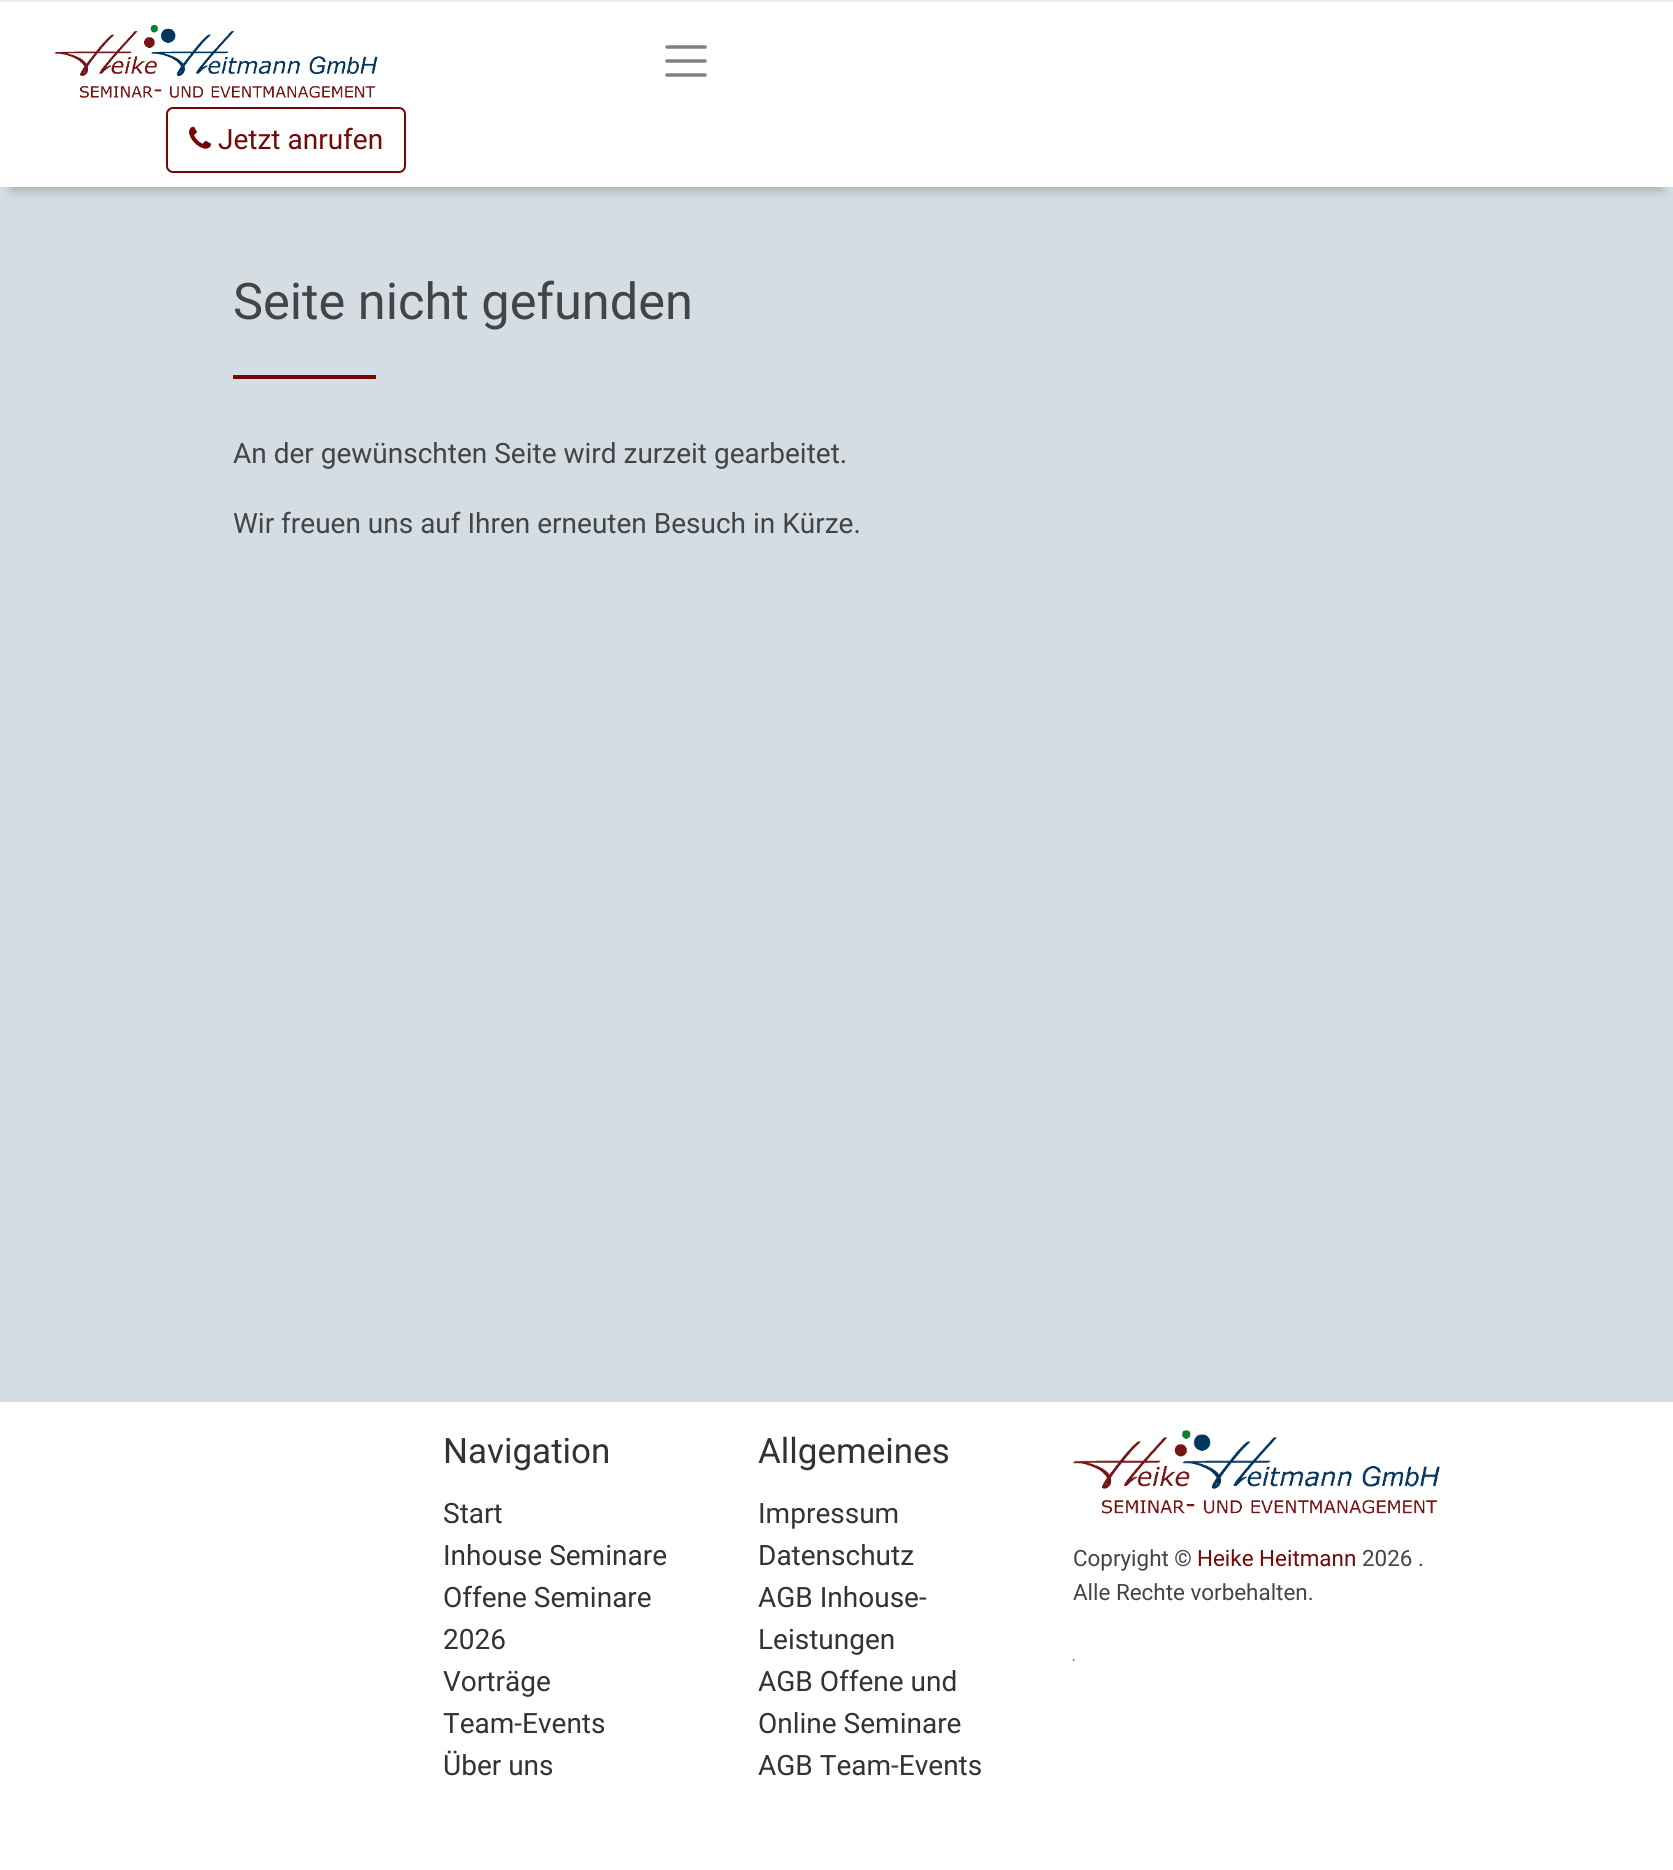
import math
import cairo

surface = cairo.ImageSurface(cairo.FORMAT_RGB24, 1673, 1870)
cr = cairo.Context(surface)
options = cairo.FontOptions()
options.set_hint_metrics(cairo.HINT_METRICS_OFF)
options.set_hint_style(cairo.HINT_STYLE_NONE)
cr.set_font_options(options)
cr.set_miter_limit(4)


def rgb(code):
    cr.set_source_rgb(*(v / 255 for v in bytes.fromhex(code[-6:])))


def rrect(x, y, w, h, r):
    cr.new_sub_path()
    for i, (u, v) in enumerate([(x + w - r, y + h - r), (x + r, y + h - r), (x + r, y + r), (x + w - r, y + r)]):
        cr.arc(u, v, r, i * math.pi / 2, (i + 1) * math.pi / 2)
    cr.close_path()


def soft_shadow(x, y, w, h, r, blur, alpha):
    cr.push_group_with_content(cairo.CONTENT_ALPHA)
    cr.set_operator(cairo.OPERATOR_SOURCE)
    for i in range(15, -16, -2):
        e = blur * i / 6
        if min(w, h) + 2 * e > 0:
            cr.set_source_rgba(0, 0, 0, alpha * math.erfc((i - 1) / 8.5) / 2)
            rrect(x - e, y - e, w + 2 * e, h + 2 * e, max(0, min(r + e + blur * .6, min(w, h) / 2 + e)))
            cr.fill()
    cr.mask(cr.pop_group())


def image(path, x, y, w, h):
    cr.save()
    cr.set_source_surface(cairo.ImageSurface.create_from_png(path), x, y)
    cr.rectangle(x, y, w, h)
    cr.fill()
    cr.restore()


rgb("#d4dde3")
cr.paint()
rgb("#000000")
soft_shadow(11, 25, 1652, 166, 0, 5, 0.2)
rgb("#ffffff")
cr.rectangle(0, 2, 1673, 185)
cr.fill()
rgb("#eeeeee")
cr.rectangle(0, 0, 1673, 2)
cr.fill()
image("img/1.png", 54, 24, 324, 74)
cr.new_path()
cr.move_to(667, 47)
cr.line_to(705, 47)
cr.move_to(667, 61)
cr.line_to(705, 61)
cr.move_to(667, 75)
cr.line_to(705, 75)
rgb("#808080")
cr.set_line_width(3.5)
cr.set_line_cap(cairo.LINE_CAP_ROUND)
cr.stroke()
rrect(167, 108, 238, 64, 6)
rgb("#770706")
cr.set_line_width(2)
cr.set_line_cap(cairo.LINE_CAP_BUTT)
cr.stroke()
image("img/2.png", 189, 126, 22, 23)
cr.rectangle(233, 375, 143, 4)
cr.fill()
rgb("#ffffff")
cr.rectangle(0, 1402, 1673, 468)
cr.fill()
image("img/3.png", 1072, 1429, 368, 85)
image("img/4.png", 1072, 1659, 3, 2)
cr.select_font_face("Roboto")
cr.set_font_size(28)
rgb("#770706")
cr.move_to(218, 149)
cr.show_text("Jetzt anrufen")
cr.set_font_size(50.5)
rgb("#444444")
cr.move_to(233, 319)
cr.show_text("Seite nicht gefunden")
cr.set_font_size(28)
cr.move_to(233, 463)
cr.show_text("An der gewünschten Seite wird zurzeit gearbeitet.")
cr.move_to(233, 533)
cr.show_text("Wir freuen uns auf Ihren erneuten Besuch in Kürze.")
cr.set_font_size(35)
rgb("#333333")
cr.move_to(443, 1463)
cr.show_text("Navigation")
cr.set_font_size(28)
for x, y, s in [
    (443, 1523, "Start"),
    (443, 1565, "Inhouse Seminare"),
    (443, 1607, "Offene Seminare"),
    (443, 1649, "2026"),
    (443, 1691, "Vorträge"),
    (443, 1733, "Team-Events"),
    (443, 1775, "Über uns"),
]:
    cr.move_to(x, y)
    cr.show_text(s)
cr.set_font_size(35)
cr.move_to(758, 1463)
cr.show_text("Allgemeines")
cr.set_font_size(28)
for x, y, s in [
    (758, 1523, "Impressum"),
    (758, 1565, "Datenschutz"),
    (758, 1607, "AGB Inhouse-"),
    (758, 1649, "Leistungen"),
    (758, 1691, "AGB Offene und"),
    (758, 1733, "Online Seminare"),
    (758, 1775, "AGB Team-Events"),
]:
    cr.move_to(x, y)
    cr.show_text(s)
cr.set_font_size(22.4)
rgb("#444444")
cr.move_to(1073, 1566)
cr.show_text("Copryight ©")
rgb("#770706")
cr.move_to(1197, 1566)
cr.show_text("Heike Heitmann")
rgb("#444444")
cr.move_to(1362, 1566)
cr.show_text("2026 .")
cr.move_to(1073, 1600)
cr.show_text("Alle Rechte vorbehalten.")
surface.write_to_png("page.png")
